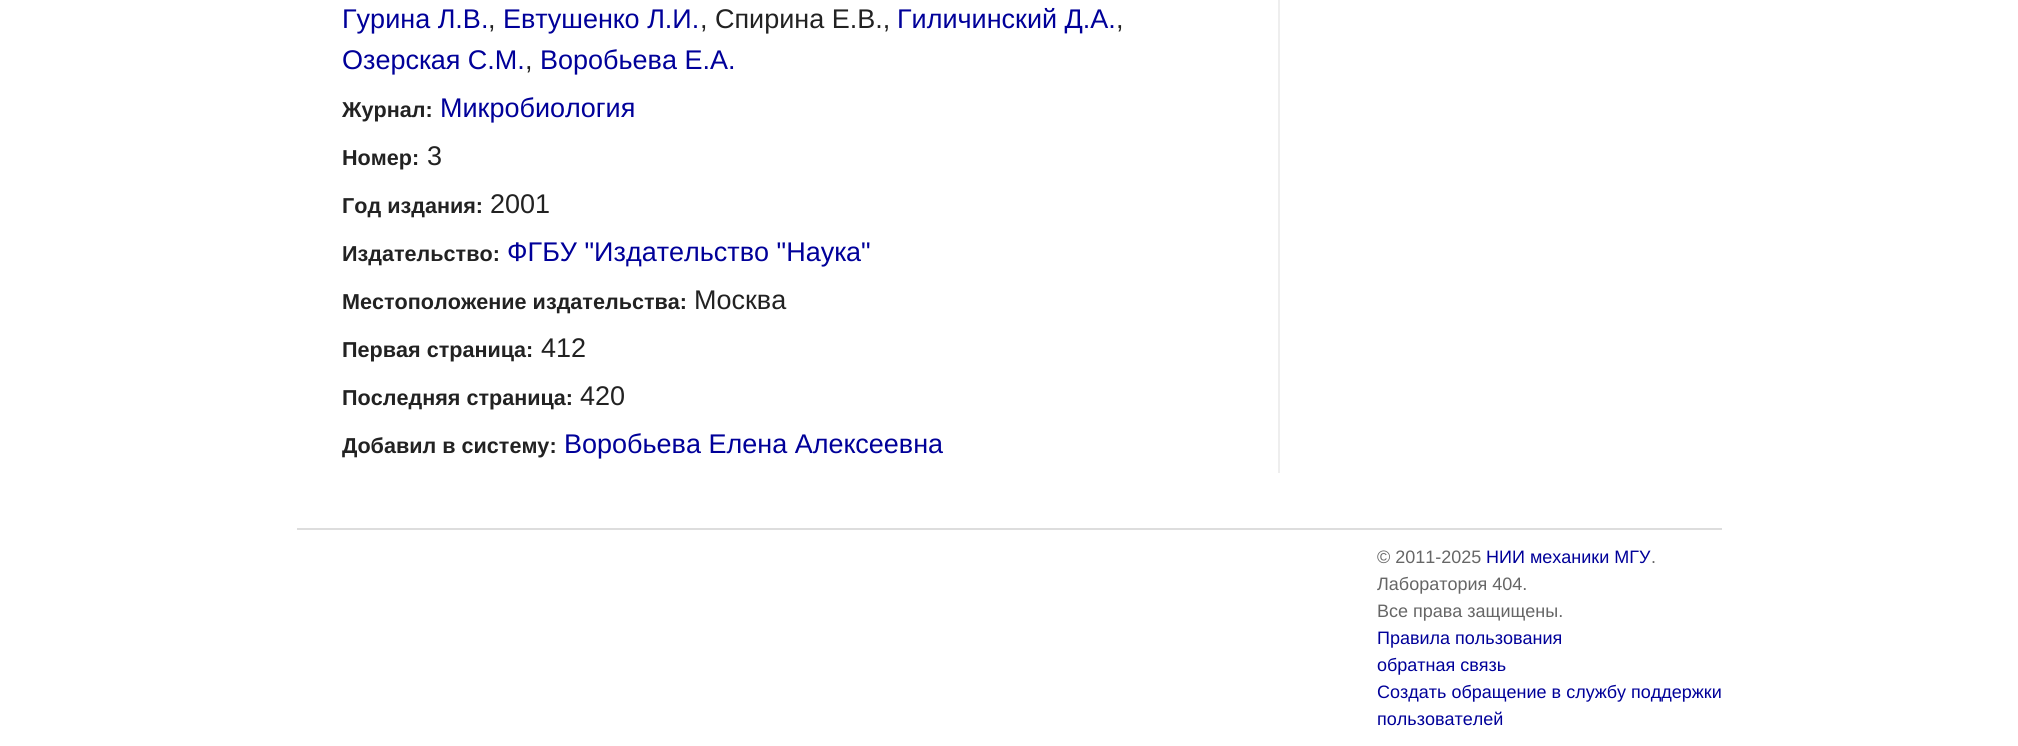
import math
import cairo

surface = cairo.ImageSurface(cairo.FORMAT_RGB24, 2018, 746)
cr = cairo.Context(surface)
options = cairo.FontOptions()
options.set_hint_metrics(cairo.HINT_METRICS_OFF)
options.set_hint_style(cairo.HINT_STYLE_NONE)
cr.set_font_options(options)
cr.set_miter_limit(4)


def rgb(code):
    cr.set_source_rgb(*(v / 255 for v in bytes.fromhex(code[-6:])))


rgb("#ffffff")
cr.paint()
rgb("#eeeeee")
cr.rectangle(1278, 0, 2, 473)
cr.fill()
rgb("#dddddd")
cr.rectangle(297, 528, 1425, 2)
cr.fill()
cr.select_font_face("Liberation Sans")
cr.set_font_size(27)
rgb("#000099")
cr.move_to(342, 28)
cr.show_text("Гурина Л.В.")
rgb("#222222")
cr.move_to(488, 28)
cr.show_text(",")
rgb("#000099")
cr.move_to(503, 28)
cr.show_text("Евтушенко Л.И.")
rgb("#222222")
cr.move_to(700, 28)
cr.show_text(", Спирина Е.В.,")
rgb("#000099")
cr.move_to(897, 28)
cr.show_text("Гиличинский Д.А.")
rgb("#222222")
cr.move_to(1116, 28)
cr.show_text(",")
rgb("#000099")
cr.move_to(342, 69)
cr.show_text("Озерская С.М.")
rgb("#222222")
cr.move_to(525, 69)
cr.show_text(",")
rgb("#000099")
cr.move_to(540, 69)
cr.show_text("Воробьева Е.А.")
cr.select_font_face("Liberation Sans", cairo.FONT_SLANT_NORMAL, cairo.FONT_WEIGHT_BOLD)
cr.set_font_size(21.6)
rgb("#222222")
cr.move_to(342, 117)
cr.show_text("Журнал:")
cr.select_font_face("Liberation Sans")
cr.set_font_size(27)
rgb("#000099")
cr.move_to(440, 117)
cr.show_text("Микробиология")
cr.select_font_face("Liberation Sans", cairo.FONT_SLANT_NORMAL, cairo.FONT_WEIGHT_BOLD)
cr.set_font_size(21.6)
rgb("#222222")
cr.move_to(342, 165)
cr.show_text("Номер:")
cr.select_font_face("Liberation Sans")
cr.set_font_size(27)
cr.move_to(427, 165)
cr.show_text("3")
cr.select_font_face("Liberation Sans", cairo.FONT_SLANT_NORMAL, cairo.FONT_WEIGHT_BOLD)
cr.set_font_size(21.6)
cr.move_to(342, 213)
cr.show_text("Год издания:")
cr.select_font_face("Liberation Sans")
cr.set_font_size(27)
cr.move_to(490, 213)
cr.show_text("2001")
cr.select_font_face("Liberation Sans", cairo.FONT_SLANT_NORMAL, cairo.FONT_WEIGHT_BOLD)
cr.set_font_size(21.6)
cr.move_to(342, 261)
cr.show_text("Издательство:")
cr.select_font_face("Liberation Sans")
cr.set_font_size(27)
rgb("#000099")
cr.move_to(507, 261)
cr.show_text("ФГБУ \"Издательство \"Наука\"")
cr.select_font_face("Liberation Sans", cairo.FONT_SLANT_NORMAL, cairo.FONT_WEIGHT_BOLD)
cr.set_font_size(21.6)
rgb("#222222")
cr.move_to(342, 309)
cr.show_text("Местоположение издательства:")
cr.select_font_face("Liberation Sans")
cr.set_font_size(27)
cr.move_to(694, 309)
cr.show_text("Москва")
cr.select_font_face("Liberation Sans", cairo.FONT_SLANT_NORMAL, cairo.FONT_WEIGHT_BOLD)
cr.set_font_size(21.6)
cr.move_to(342, 357)
cr.show_text("Первая страница:")
cr.select_font_face("Liberation Sans")
cr.set_font_size(27)
cr.move_to(541, 357)
cr.show_text("412")
cr.select_font_face("Liberation Sans", cairo.FONT_SLANT_NORMAL, cairo.FONT_WEIGHT_BOLD)
cr.set_font_size(21.6)
cr.move_to(342, 405)
cr.show_text("Последняя страница:")
cr.select_font_face("Liberation Sans")
cr.set_font_size(27)
cr.move_to(580, 405)
cr.show_text("420")
cr.select_font_face("Liberation Sans", cairo.FONT_SLANT_NORMAL, cairo.FONT_WEIGHT_BOLD)
cr.set_font_size(21.6)
cr.move_to(342, 453)
cr.show_text("Добавил в систему:")
cr.select_font_face("Liberation Sans")
cr.set_font_size(27)
rgb("#000099")
cr.move_to(564, 453)
cr.show_text("Воробьева Елена Алексеевна")
cr.set_font_size(18)
rgb("#666666")
cr.move_to(1377, 563)
cr.show_text("© 2011-2025")
rgb("#000099")
cr.move_to(1486, 563)
cr.show_text("НИИ механики МГУ")
rgb("#666666")
for x, y, s in [
    (1651, 563, "."),
    (1377, 590, "Лаборатория 404."),
    (1377, 617, "Все права защищены."),
]:
    cr.move_to(x, y)
    cr.show_text(s)
rgb("#000099")
for x, y, s in [
    (1377, 644, "Правила пользования"),
    (1377, 671, "обратная связь"),
    (1377, 698, "Создать обращение в службу поддержки"),
    (1377, 725, "пользователей"),
]:
    cr.move_to(x, y)
    cr.show_text(s)
surface.write_to_png("page.png")
